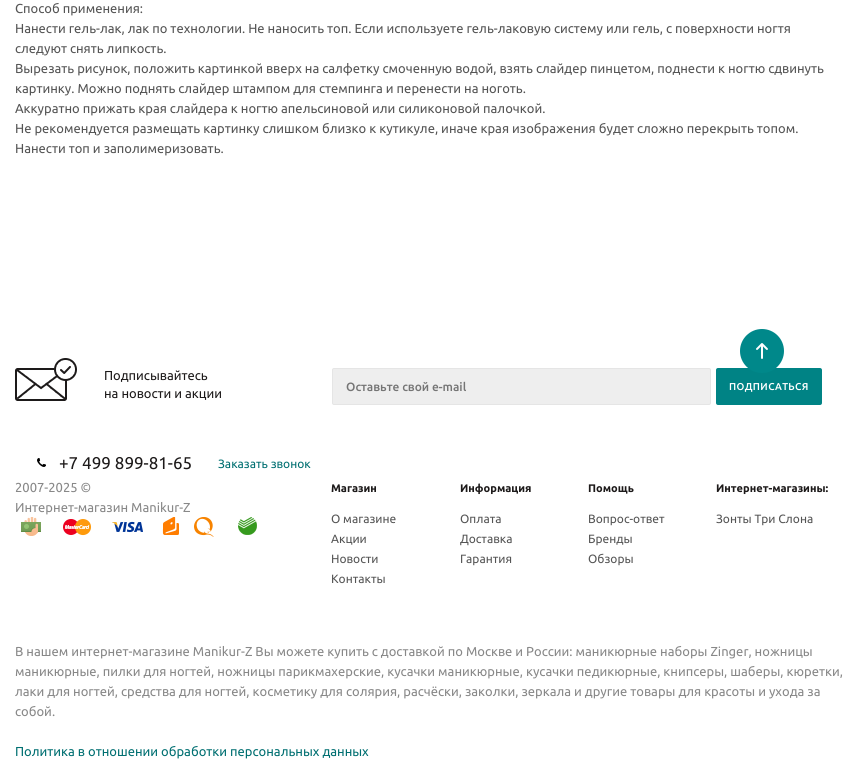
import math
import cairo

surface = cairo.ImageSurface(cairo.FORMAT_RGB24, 859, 761)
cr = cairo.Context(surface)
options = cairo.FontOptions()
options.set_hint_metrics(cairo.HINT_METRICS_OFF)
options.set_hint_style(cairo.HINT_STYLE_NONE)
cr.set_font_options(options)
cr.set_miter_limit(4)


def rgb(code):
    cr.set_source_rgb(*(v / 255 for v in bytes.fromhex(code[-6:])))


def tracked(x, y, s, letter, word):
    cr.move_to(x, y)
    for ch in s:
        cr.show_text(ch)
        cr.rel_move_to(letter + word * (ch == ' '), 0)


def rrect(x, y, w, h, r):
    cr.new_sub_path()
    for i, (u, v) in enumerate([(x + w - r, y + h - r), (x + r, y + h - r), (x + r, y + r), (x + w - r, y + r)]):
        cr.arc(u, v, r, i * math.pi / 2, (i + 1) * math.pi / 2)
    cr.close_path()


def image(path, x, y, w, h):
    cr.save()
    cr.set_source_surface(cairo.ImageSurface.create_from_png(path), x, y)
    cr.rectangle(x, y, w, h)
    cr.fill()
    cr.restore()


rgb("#ffffff")
cr.paint()
rgb("#008385")
rrect(716, 368, 106, 37, 2)
cr.fill()
rgb("#00888a")
cr.arc(762, 351, 22, 0, 2 * math.pi)
cr.fill()
image("img/1.png", 756, 343, 12, 16)
image("img/2.png", 15, 358, 62, 43)
rgb("#eeeeee")
rrect(332.5, 368.5, 378, 36, 1.5)
cr.fill_preserve()
rgb("#e5e5e5")
cr.set_line_width(1)
cr.stroke()
image("img/3.png", 37, 458, 9, 9)
image("img/4.png", 21, 517, 20, 19)
image("img/5.png", 63, 519, 28, 17)
image("img/6.png", 112, 521, 31, 12)
image("img/7.png", 162, 517, 17, 18)
image("img/8.png", 194, 517, 20, 20)
image("img/9.png", 238, 517, 19, 18)
cr.select_font_face("Ubuntu")
cr.set_font_size(13)
rgb("#555555")
for x, y, s in [
    (15, 13, "Способ применения:"),
    (15, 33, "Нанести гель-лак, лак по технологии. Не наносить топ. Если используете гель-лаковую систему или гель, с поверхности ногтя"),
    (15, 53, "следуют снять липкость."),
    (15, 73, "Вырезать рисунок, положить картинкой вверх на салфетку смоченную водой, взять слайдер пинцетом, поднести к ногтю сдвинуть"),
    (15, 93, "картинку. Можно поднять слайдер штампом для стемпинга и перенести на ноготь."),
    (15, 113, "Аккуратно прижать края слайдера к ногтю апельсиновой или силиконовой палочкой."),
    (15, 133, "Не рекомендуется размещать картинку слишком близко к кутикуле, иначе края изображения будет сложно перекрыть топом."),
    (15, 153, "Нанести топ и заполимеризовать."),
]:
    cr.move_to(x, y)
    cr.show_text(s)
rgb("#1d1a1a")
cr.move_to(104, 380)
cr.show_text("Подписывайтесь")
cr.move_to(104, 398)
cr.show_text("на новости и акции")
cr.select_font_face("Ubuntu Medium")
cr.set_font_size(12)
rgb("#757575")
cr.move_to(346, 391)
cr.show_text("Оставьте свой e-mail")
cr.set_font_size(10)
rgb("#ffffff")
tracked(729, 390, "ПОДПИСАТЬСЯ", 0.4, 0)
cr.select_font_face("Ubuntu")
cr.set_font_size(17)
rgb("#1d1a1a")
cr.move_to(59, 469)
cr.show_text("+7 499 899-81-65")
cr.set_font_size(12)
rgb("#006f71")
cr.move_to(218, 468)
cr.show_text("Заказать звонок")
cr.set_font_size(13)
rgb("#888888")
cr.move_to(15, 492)
cr.show_text("2007-2025 ©")
cr.move_to(15, 512)
cr.show_text("Интернет-магазин Manikur-Z")
cr.select_font_face("Ubuntu", cairo.FONT_SLANT_NORMAL, cairo.FONT_WEIGHT_BOLD)
cr.set_font_size(11)
rgb("#1d1a1a")
for x, y, s in [
    (331, 492, "Магазин"),
    (460, 492, "Информация"),
    (588, 492, "Помощь"),
    (716, 492, "Интернет-магазины:"),
]:
    cr.move_to(x, y)
    cr.show_text(s)
cr.select_font_face("Ubuntu")
cr.set_font_size(12)
rgb("#555555")
for x, y, s in [
    (331, 523, "О магазине"),
    (331, 543, "Акции"),
    (331, 563, "Новости"),
    (331, 583, "Контакты"),
    (460, 523, "Оплата"),
    (460, 543, "Доставка"),
    (460, 563, "Гарантия"),
    (588, 523, "Вопрос-ответ"),
    (588, 543, "Бренды"),
    (588, 563, "Обзоры"),
    (716, 523, "Зонты Три Слона"),
]:
    cr.move_to(x, y)
    cr.show_text(s)
cr.set_font_size(13)
rgb("#888888")
for x, y, s in [
    (15, 656, "В нашем интернет-магазине Manikur-Z Вы можете купить с доставкой по Москве и России: маникюрные наборы Zinger, ножницы"),
    (15, 676, "маникюрные, пилки для ногтей, ножницы парикмахерские, кусачки маникюрные, кусачки педикюрные, книпсеры, шаберы, кюретки,"),
    (15, 696, "лаки для ногтей, средства для ногтей, косметику для солярия, расчёски, заколки, зеркала и другие товары для красоты и ухода за"),
    (15, 716, "собой."),
]:
    cr.move_to(x, y)
    cr.show_text(s)
rgb("#006f71")
cr.move_to(15, 756)
cr.show_text("Политика в отношении обработки персональных данных")
surface.write_to_png("page.png")
